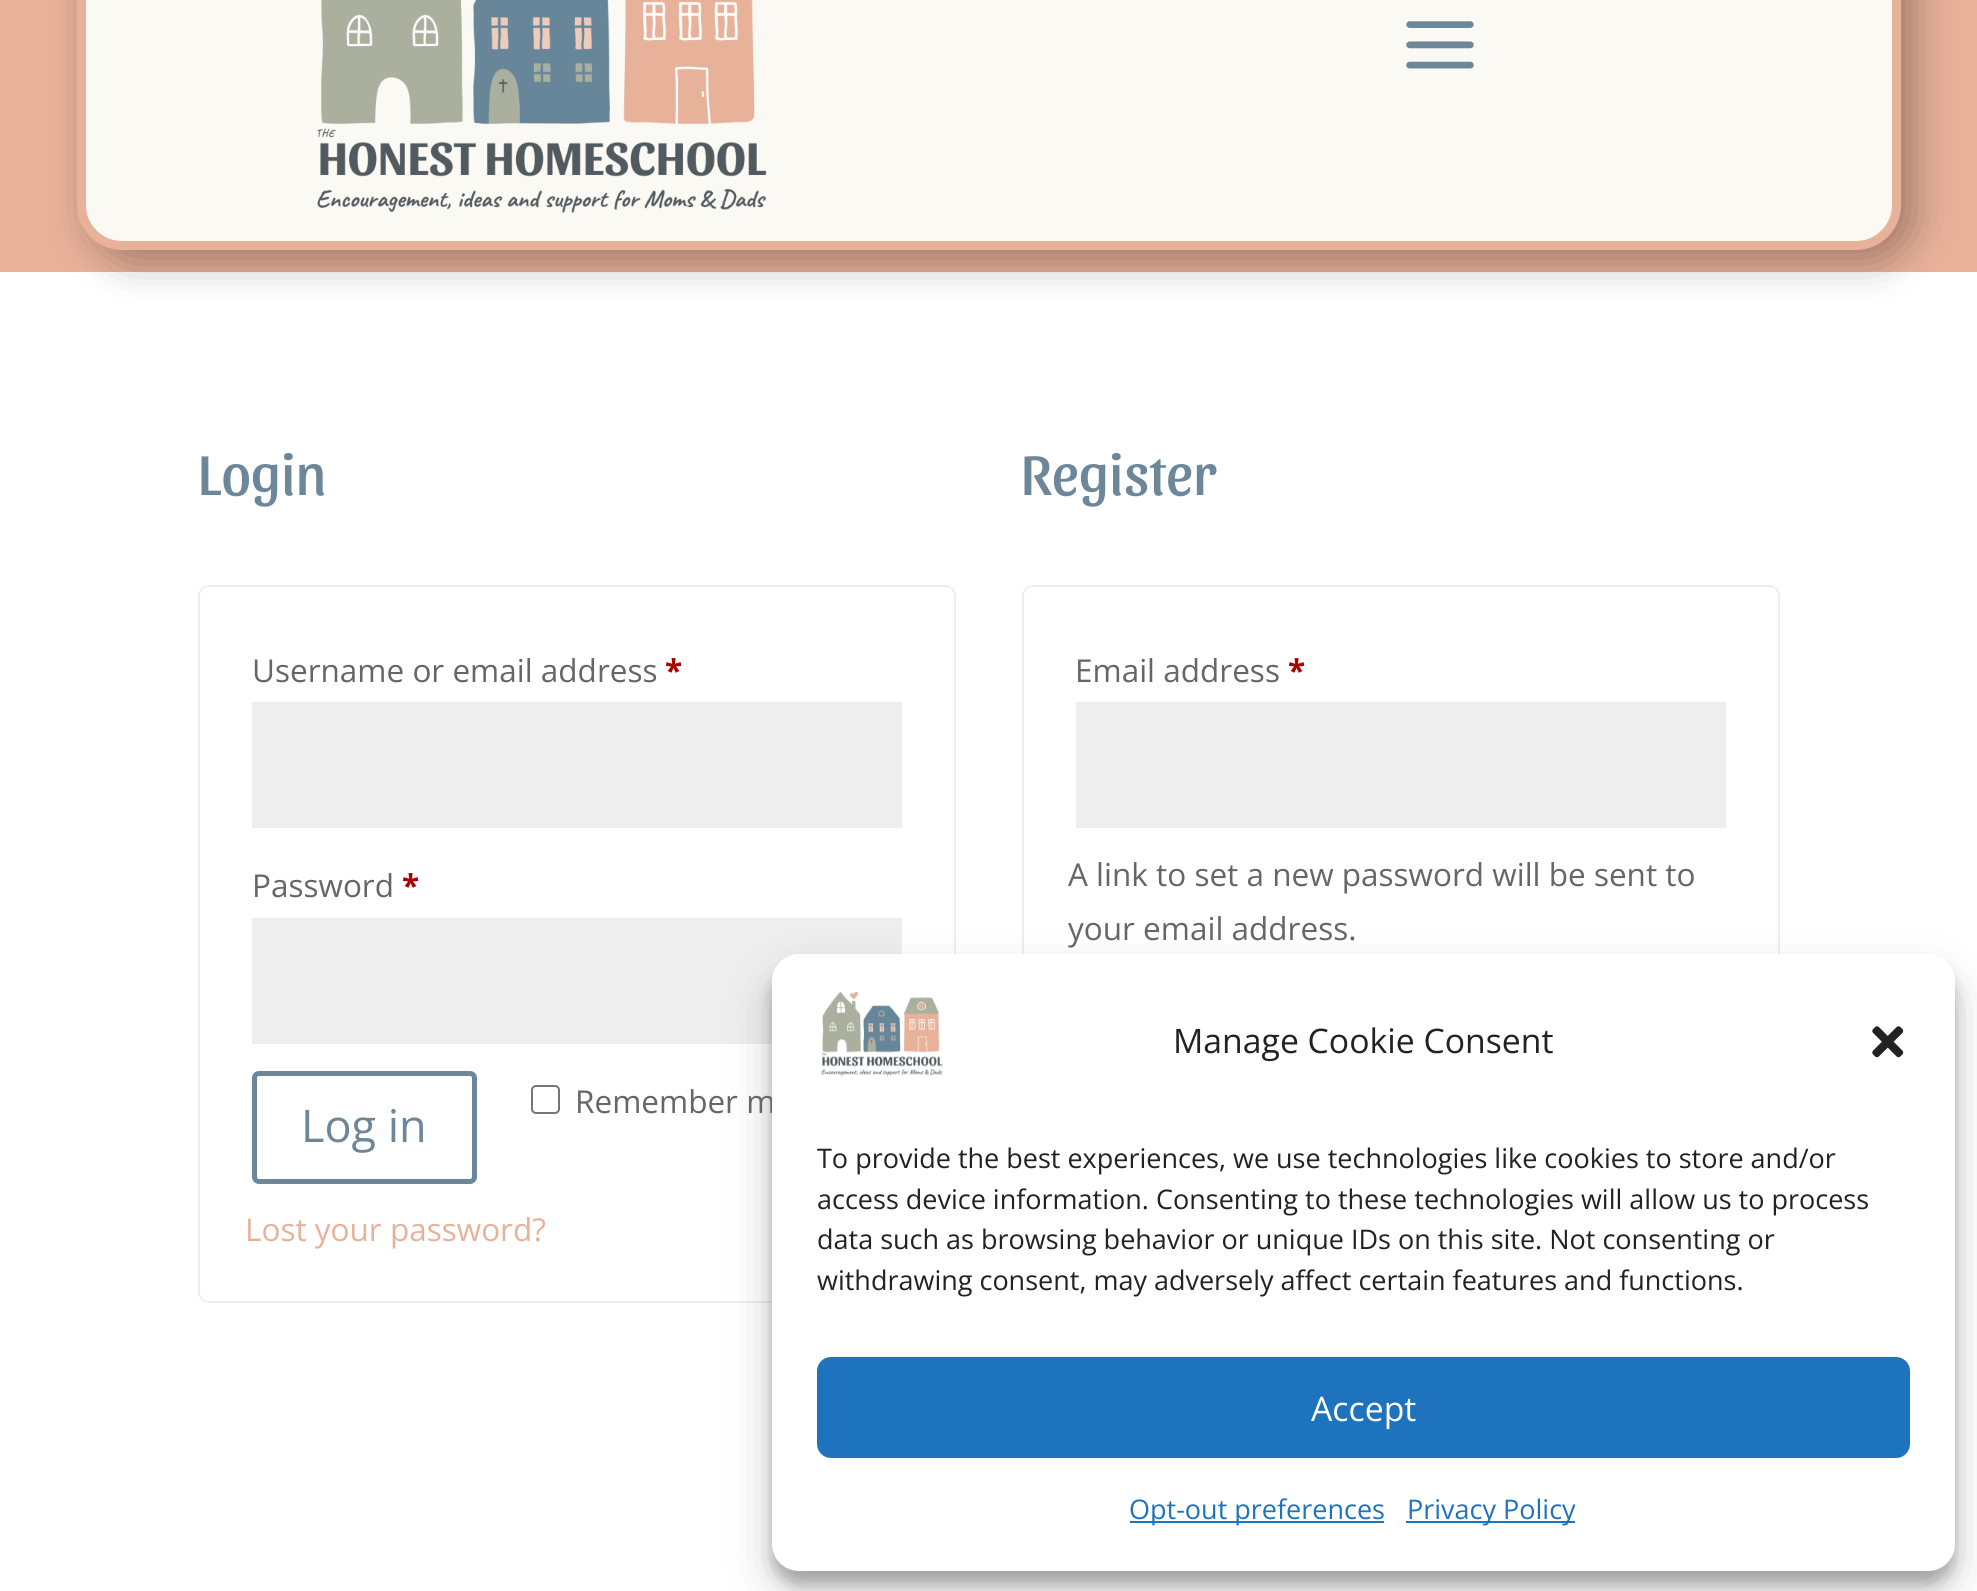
import math
import cairo

surface = cairo.ImageSurface(cairo.FORMAT_RGB24, 1977, 1591)
cr = cairo.Context(surface)
options = cairo.FontOptions()
options.set_hint_metrics(cairo.HINT_METRICS_OFF)
options.set_hint_style(cairo.HINT_STYLE_NONE)
cr.set_font_options(options)
cr.set_miter_limit(4)


def rgb(code):
    cr.set_source_rgb(*(v / 255 for v in bytes.fromhex(code[-6:])))


def rrect(x, y, w, h, r):
    cr.new_sub_path()
    for i, (u, v) in enumerate([(x + w - r, y + h - r), (x + r, y + h - r), (x + r, y + r), (x + w - r, y + r)]):
        cr.arc(u, v, r, i * math.pi / 2, (i + 1) * math.pi / 2)
    cr.close_path()


def soft_shadow(x, y, w, h, r, blur, alpha):
    cr.push_group_with_content(cairo.CONTENT_ALPHA)
    cr.set_operator(cairo.OPERATOR_SOURCE)
    for i in range(15, -16, -2):
        e = blur * i / 6
        if min(w, h) + 2 * e > 0:
            cr.set_source_rgba(0, 0, 0, alpha * math.erfc((i - 1) / 8.5) / 2)
            rrect(x - e, y - e, w + 2 * e, h + 2 * e, max(0, min(r + e + blur * .6, min(w, h) / 2 + e)))
            cr.fill()
    cr.mask(cr.pop_group())


def image(path, x, y, w, h):
    cr.save()
    cr.set_source_surface(cairo.ImageSurface.create_from_png(path), x, y)
    cr.rectangle(x, y, w, h)
    cr.fill()
    cr.restore()


rgb("#ffffff")
cr.paint()
rgb("#e8b19a")
cr.rectangle(0, 0, 1977, 272)
cr.fill()
rgb("#000000")
soft_shadow(90, -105, 1825, 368, 45, 20, 0.3)
rgb("#fbf9f4")
rrect(81.5, -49.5, 1815, 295, 40.5)
cr.fill_preserve()
rgb("#e8b19a")
cr.set_line_width(9)
cr.stroke()
image("img/1.png", 317, 0, 450, 213)
image("img/2.png", 1406, 21, 68, 48)
rrect(199, 586, 756, 716, 10)
rgb("#eeeeee")
cr.set_line_width(2)
cr.stroke()
cr.rectangle(252, 702, 650, 126)
cr.fill()
cr.rectangle(252, 918, 650, 126)
cr.fill()
rrect(532, 1086, 27, 27, 4)
rgb("#767676")
cr.stroke()
rrect(254.5, 1073.5, 220, 108, 4.5)
rgb("#6c879a")
cr.set_line_width(5)
cr.stroke()
rrect(1023, 586, 756, 846, 10)
rgb("#eeeeee")
cr.set_line_width(2)
cr.stroke()
cr.rectangle(1076, 702, 650, 126)
cr.fill()
rgb("#000000")
soft_shadow(772, 968, 1183, 616, 27, 7, 0.23)
soft_shadow(772, 977, 1183, 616, 27, 22.5, 0.19)
cr.select_font_face("Sansita")
cr.set_font_size(58.5)
rgb("#6c879a")
cr.move_to(198, 495)
cr.show_text("Login")
cr.select_font_face("Open Sans")
cr.set_font_size(31.5)
rgb("#666666")
cr.move_to(252, 682)
cr.show_text("Username or email address")
cr.select_font_face("Open Sans", cairo.FONT_SLANT_NORMAL, cairo.FONT_WEIGHT_BOLD)
rgb("#aa0000")
cr.move_to(665, 682)
cr.show_text("*")
cr.select_font_face("Open Sans")
rgb("#666666")
cr.move_to(252, 897)
cr.show_text("Password")
cr.select_font_face("Open Sans", cairo.FONT_SLANT_NORMAL, cairo.FONT_WEIGHT_BOLD)
rgb("#aa0000")
cr.move_to(402, 897)
cr.show_text("*")
cr.select_font_face("Open Sans")
rgb("#666666")
cr.move_to(575, 1113)
cr.show_text("Remember m")
cr.set_font_size(45)
rgb("#6c879a")
cr.move_to(301, 1142)
cr.show_text("Log in")
cr.set_font_size(31.5)
rgb("#e8b19a")
cr.move_to(245, 1241)
cr.show_text("Lost your password?")
cr.select_font_face("Sansita")
cr.set_font_size(58.5)
rgb("#6c879a")
cr.move_to(1021, 495)
cr.show_text("Register")
cr.select_font_face("Open Sans")
cr.set_font_size(31.5)
rgb("#666666")
cr.move_to(1075, 682)
cr.show_text("Email address")
cr.select_font_face("Open Sans", cairo.FONT_SLANT_NORMAL, cairo.FONT_WEIGHT_BOLD)
rgb("#aa0000")
cr.move_to(1288, 682)
cr.show_text("*")
cr.select_font_face("Open Sans")
rgb("#666666")
cr.move_to(1068, 886)
cr.show_text("A link to set a new password will be sent to")
cr.move_to(1068, 940)
cr.show_text("your email address.")
rgb("#ffffff")
rrect(772, 954, 1183, 617, 27)
cr.fill()
image("img/3.png", 821, 991, 122, 86)
cr.set_font_size(33.75)
rgb("#222222")
cr.move_to(1173, 1053)
cr.show_text("Manage Cookie Consent")
image("img/4.png", 1872, 1026, 32, 32)
cr.set_font_size(27)
for x, y, s in [
    (817, 1168, "To provide the best experiences, we use technologies like cookies to store and/or"),
    (817, 1209, "access device information. Consenting to these technologies will allow us to process"),
    (817, 1249, "data such as browsing behavior or unique IDs on this site. Not consenting or"),
    (817, 1290, "withdrawing consent, may adversely affect certain features and functions."),
]:
    cr.move_to(x, y)
    cr.show_text(s)
rgb("#1e73be")
rrect(818, 1358, 1091, 99, 13)
cr.fill_preserve()
cr.stroke()
cr.set_font_size(33.75)
rgb("#ffffff")
cr.move_to(1311, 1421)
cr.show_text("Accept")
rgb("#1e73be")
cr.rectangle(1130, 1521, 254, 2)
cr.fill()
cr.set_font_size(27)
cr.move_to(1129, 1519)
cr.show_text("Opt-out preferences")
cr.rectangle(1406, 1521, 169, 2)
cr.fill()
cr.move_to(1407, 1519)
cr.show_text("Privacy Policy")
surface.write_to_png("page.png")
